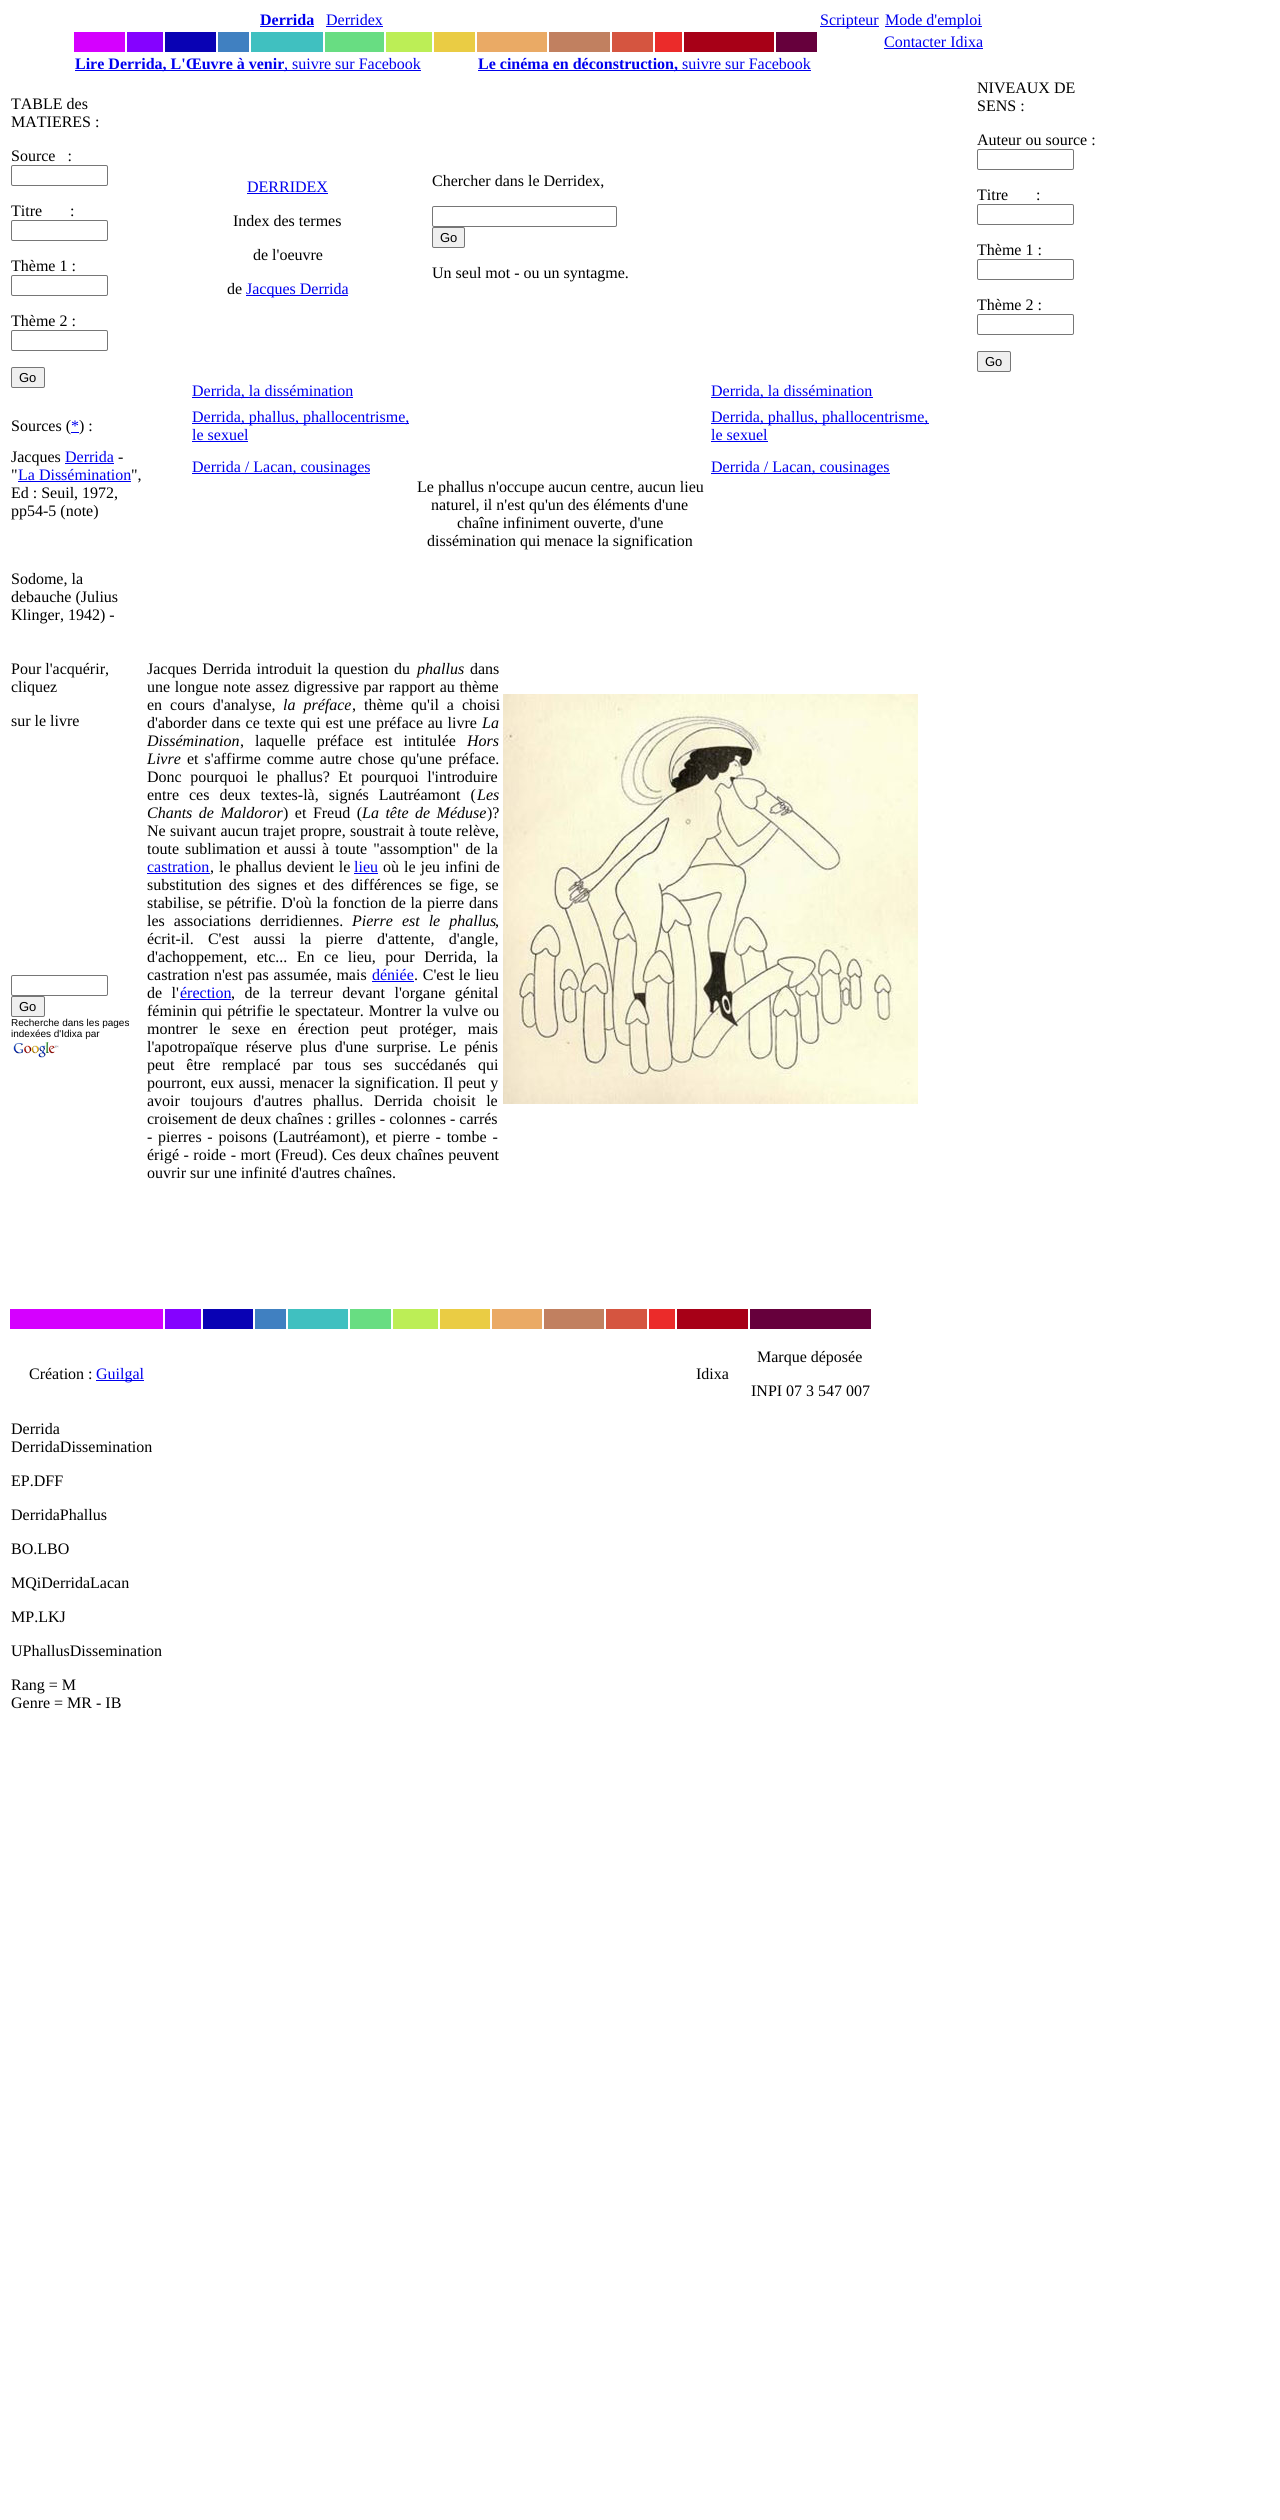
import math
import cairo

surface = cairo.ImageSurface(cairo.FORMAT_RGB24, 1280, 2520)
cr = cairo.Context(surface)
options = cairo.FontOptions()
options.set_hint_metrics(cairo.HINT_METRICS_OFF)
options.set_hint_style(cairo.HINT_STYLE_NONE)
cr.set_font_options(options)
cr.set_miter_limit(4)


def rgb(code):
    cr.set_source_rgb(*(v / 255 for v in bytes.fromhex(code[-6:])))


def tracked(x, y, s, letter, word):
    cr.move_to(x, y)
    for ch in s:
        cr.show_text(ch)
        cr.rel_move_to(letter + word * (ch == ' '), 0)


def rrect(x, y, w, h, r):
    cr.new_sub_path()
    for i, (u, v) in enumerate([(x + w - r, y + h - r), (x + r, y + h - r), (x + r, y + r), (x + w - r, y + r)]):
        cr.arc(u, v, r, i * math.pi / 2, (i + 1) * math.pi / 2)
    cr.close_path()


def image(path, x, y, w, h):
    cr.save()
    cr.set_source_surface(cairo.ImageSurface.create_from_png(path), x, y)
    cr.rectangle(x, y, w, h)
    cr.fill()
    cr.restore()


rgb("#ffffff")
cr.paint()
for x, y, w, h, color in [
    (260, 26, 54, 1, "#0000ee"),
    (326, 26, 57, 1, "#0000ee"),
    (820, 26, 59, 1, "#0000ee"),
    (885, 26, 97, 1, "#0000ee"),
    (74, 32, 51, 20, "#d500ff"),
    (127, 32, 36, 20, "#8502ff"),
    (165, 32, 51, 20, "#0902b4"),
    (218, 32, 31, 20, "#4080c1"),
    (251, 32, 72, 20, "#40c0c0"),
    (325, 32, 59, 20, "#68dd82"),
    (386, 32, 46, 20, "#bcee56"),
    (434, 32, 41, 20, "#eacc44"),
    (477, 32, 70, 20, "#eaaa65"),
    (549, 32, 61, 20, "#c18060"),
    (612, 32, 41, 20, "#d55540"),
    (655, 32, 27, 20, "#eb2b2a"),
    (684, 32, 90, 20, "#a70017"),
    (776, 32, 41, 20, "#66003c"),
    (884, 48, 99, 1, "#0000ee"),
    (75, 70, 346, 1, "#0000ee"),
    (478, 70, 333, 1, "#0000ee"),
]:
    rgb(color)
    cr.rectangle(x, y, w, h)
    cr.fill()
rrect(11.5, 165.5, 96, 20, 1.5)
rgb("#767676")
cr.set_line_width(1)
cr.stroke()
rrect(11.5, 220.5, 96, 20, 1.5)
cr.stroke()
rrect(11.5, 275.5, 96, 20, 1.5)
cr.stroke()
rrect(11.5, 330.5, 96, 20, 1.5)
cr.stroke()
rgb("#efefef")
rrect(11.5, 367.5, 33, 20, 1.5)
cr.fill_preserve()
rgb("#767676")
cr.stroke()
rrect(977.5, 149.5, 96, 20, 1.5)
cr.stroke()
rrect(977.5, 204.5, 96, 20, 1.5)
cr.stroke()
rrect(977.5, 259.5, 96, 20, 1.5)
cr.stroke()
rrect(977.5, 314.5, 96, 20, 1.5)
cr.stroke()
rgb("#efefef")
rrect(977.5, 351.5, 33, 20, 1.5)
cr.fill_preserve()
rgb("#767676")
cr.stroke()
rgb("#0000ee")
cr.rectangle(247, 193, 81, 1)
cr.fill()
cr.rectangle(246, 295, 102, 1)
cr.fill()
rrect(432.5, 206.5, 184, 20, 1.5)
rgb("#767676")
cr.stroke()
rgb("#efefef")
rrect(432.5, 227.5, 32, 20, 1.5)
cr.fill_preserve()
rgb("#767676")
cr.stroke()
for x, y, w, h, color in [
    (192, 397, 161, 1, "#0000ee"),
    (711, 397, 162, 1, "#0000ee"),
    (71, 432, 8, 1, "#0000ee"),
    (192, 423, 217, 1, "#0000ee"),
    (192, 441, 56, 1, "#0000ee"),
    (711, 423, 218, 1, "#0000ee"),
    (711, 441, 57, 1, "#0000ee"),
    (65, 463, 49, 1, "#0000ee"),
    (18, 481, 113, 1, "#0000ee"),
    (192, 473, 178, 1, "#0000ee"),
    (711, 473, 179, 1, "#0000ee"),
    (147, 873, 63, 1, "#0000ee"),
    (354, 873, 24, 1, "#0000ee"),
    (372, 981, 42, 1, "#0000ee"),
    (180, 999, 51, 1, "#0000ee"),
]:
    rgb(color)
    cr.rectangle(x, y, w, h)
    cr.fill()
image("img/1.png", 503, 694, 415, 410)
rrect(11.5, 975.5, 96, 20, 1.5)
rgb("#767676")
cr.stroke()
rgb("#efefef")
rrect(11.5, 996.5, 33, 20, 1.5)
cr.fill_preserve()
rgb("#767676")
cr.stroke()
image("img/2.png", 13, 1042, 46, 16)
for x, y, w, h, color in [
    (10, 1309, 153, 20, "#d500ff"),
    (165, 1309, 36, 20, "#8502ff"),
    (203, 1309, 50, 20, "#0902b4"),
    (255, 1309, 31, 20, "#4080c1"),
    (288, 1309, 60, 20, "#40c0c0"),
    (350, 1309, 41, 20, "#68dd82"),
    (393, 1309, 45, 20, "#bcee56"),
    (440, 1309, 50, 20, "#eacc44"),
    (492, 1309, 50, 20, "#eaaa65"),
    (544, 1309, 60, 20, "#c18060"),
    (606, 1309, 41, 20, "#d55540"),
    (649, 1309, 26, 20, "#eb2b2a"),
    (677, 1309, 71, 20, "#a70017"),
    (750, 1309, 121, 20, "#66003c"),
    (96, 1380, 48, 1, "#0000ee"),
]:
    rgb(color)
    cr.rectangle(x, y, w, h)
    cr.fill()
cr.select_font_face("Liberation Serif", cairo.FONT_SLANT_NORMAL, cairo.FONT_WEIGHT_BOLD)
cr.set_font_size(16)
cr.move_to(260, 25)
cr.show_text("Derrida")
cr.select_font_face("Liberation Serif")
for x, y, s in [
    (326, 25, "Derridex"),
    (820, 25, "Scripteur"),
    (885, 25, "Mode d'emploi"),
    (884, 47, "Contacter Idixa"),
]:
    cr.move_to(x, y)
    cr.show_text(s)
cr.select_font_face("Liberation Serif", cairo.FONT_SLANT_NORMAL, cairo.FONT_WEIGHT_BOLD)
cr.move_to(75, 69)
cr.show_text("Lire Derrida, L'Œuvre à venir")
cr.select_font_face("Liberation Serif")
cr.move_to(284, 69)
cr.show_text(", suivre sur Facebook")
cr.select_font_face("Liberation Serif", cairo.FONT_SLANT_NORMAL, cairo.FONT_WEIGHT_BOLD)
cr.move_to(478, 69)
cr.show_text("Le cinéma en déconstruction,")
cr.select_font_face("Liberation Serif")
cr.move_to(682, 69)
cr.show_text("suivre sur Facebook")
rgb("#000000")
for x, y, s in [
    (11, 109, "TABLE des"),
    (11, 127, "MATIERES :"),
    (11, 161, "Source   :"),
    (11, 216, "Titre       :"),
    (11, 271, "Thème 1 :"),
    (11, 326, "Thème 2 :"),
]:
    cr.move_to(x, y)
    cr.show_text(s)
cr.select_font_face("Liberation Sans")
cr.set_font_size(13)
cr.move_to(19, 382)
cr.show_text("Go")
cr.select_font_face("Liberation Serif")
cr.set_font_size(16)
for x, y, s in [
    (977, 93, "NIVEAUX DE"),
    (977, 111, "SENS :"),
    (977, 145, "Auteur ou source :"),
    (977, 200, "Titre       :"),
    (977, 255, "Thème 1 :"),
    (977, 310, "Thème 2 :"),
]:
    cr.move_to(x, y)
    cr.show_text(s)
cr.select_font_face("Liberation Sans")
cr.set_font_size(13)
cr.move_to(985, 366)
cr.show_text("Go")
cr.select_font_face("Liberation Serif")
cr.set_font_size(16)
rgb("#0000ee")
cr.move_to(247, 192)
cr.show_text("DERRIDEX")
rgb("#000000")
for x, y, s in [
    (233, 226, "Index des termes"),
    (253, 260, "de l'oeuvre"),
    (227, 294, "de"),
]:
    cr.move_to(x, y)
    cr.show_text(s)
rgb("#0000ee")
cr.move_to(246, 294)
cr.show_text("Jacques Derrida")
rgb("#000000")
cr.move_to(432, 186)
cr.show_text("Chercher dans le Derridex,")
cr.select_font_face("Liberation Sans")
cr.set_font_size(13)
cr.move_to(440, 242)
cr.show_text("Go")
cr.select_font_face("Liberation Serif")
cr.set_font_size(16)
cr.move_to(432, 278)
cr.show_text("Un seul mot - ou un syntagme.")
rgb("#0000ee")
cr.move_to(192, 396)
cr.show_text("Derrida, la dissémination")
cr.move_to(711, 396)
cr.show_text("Derrida, la dissémination")
rgb("#000000")
cr.move_to(11, 431)
cr.show_text("Sources (")
rgb("#0000ee")
cr.move_to(71, 431)
cr.show_text("*")
rgb("#000000")
cr.move_to(79, 431)
cr.show_text(") :")
rgb("#0000ee")
for x, y, s in [
    (192, 422, "Derrida, phallus, phallocentrisme,"),
    (192, 440, "le sexuel"),
    (711, 422, "Derrida, phallus, phallocentrisme,"),
    (711, 440, "le sexuel"),
]:
    cr.move_to(x, y)
    cr.show_text(s)
rgb("#000000")
cr.move_to(11, 462)
cr.show_text("Jacques")
rgb("#0000ee")
cr.move_to(65, 462)
cr.show_text("Derrida")
rgb("#000000")
cr.move_to(118, 462)
cr.show_text("-")
cr.move_to(11, 480)
cr.show_text("\"")
rgb("#0000ee")
cr.move_to(18, 480)
cr.show_text("La Dissémination")
rgb("#000000")
for x, y, s in [
    (131, 480, "\","),
    (11, 498, "Ed : Seuil, 1972,"),
    (11, 516, "pp54-5 (note)"),
    (11, 584, "Sodome, la"),
    (11, 602, "debauche (Julius"),
    (11, 620, "Klinger, 1942) -"),
]:
    cr.move_to(x, y)
    cr.show_text(s)
rgb("#0000ee")
cr.move_to(192, 472)
cr.show_text("Derrida / Lacan, cousinages")
cr.move_to(711, 472)
cr.show_text("Derrida / Lacan, cousinages")
rgb("#000000")
for x, y, s in [
    (417, 492, "Le phallus n'occupe aucun centre, aucun lieu"),
    (431, 510, "naturel, il n'est qu'un des éléments d'une"),
    (457, 528, "chaîne infiniment ouverte, d'une"),
    (427, 546, "dissémination qui menace la signification"),
    (11, 674, "Pour l'acquérir,"),
    (11, 692, "cliquez"),
    (11, 726, "sur le livre"),
]:
    cr.move_to(x, y)
    cr.show_text(s)
tracked(147, 674, "Jacques Derrida introduit la question du", 0, 1.5)
cr.select_font_face("Liberation Serif", cairo.FONT_SLANT_ITALIC)
cr.move_to(417, 674)
cr.show_text("phallus")
cr.select_font_face("Liberation Serif")
cr.move_to(470, 674)
cr.show_text("dans")
tracked(147, 692, "une longue note assez digressive par rapport au thème", 0, 0.75)
tracked(147, 710, "en cours d'analyse,", 0, 4)
cr.select_font_face("Liberation Serif", cairo.FONT_SLANT_ITALIC)
tracked(283, 710, "la préface", 0, 4)
cr.select_font_face("Liberation Serif")
tracked(352, 710, ", thème qu'il a choisi", 0, 4)
tracked(147, 728, "d'aborder dans ce texte qui est une préface au livre", 0, 0.75)
cr.select_font_face("Liberation Serif", cairo.FONT_SLANT_ITALIC)
cr.move_to(482, 728)
cr.show_text("La")
cr.move_to(147, 746)
cr.show_text("Dissémination")
cr.select_font_face("Liberation Serif")
tracked(240, 746, ", laquelle préface est intitulée", 0, 7)
cr.select_font_face("Liberation Serif", cairo.FONT_SLANT_ITALIC)
cr.move_to(467, 746)
cr.show_text("Hors")
cr.move_to(147, 764)
cr.show_text("Livre")
cr.select_font_face("Liberation Serif")
tracked(187, 764, "et s'affirme comme autre chose qu'une préface.", 0, 2)
tracked(147, 782, "Donc pourquoi le phallus? Et pourquoi l'introduire", 0, 4.5)
tracked(147, 800, "entre ces deux textes-là, signés Lautréamont (", 0, 6)
cr.select_font_face("Liberation Serif", cairo.FONT_SLANT_ITALIC)
cr.move_to(477, 800)
cr.show_text("Les")
tracked(147, 818, "Chants de Maldoror", 0, 2.5)
cr.select_font_face("Liberation Serif")
tracked(283, 818, ") et Freud (", 0, 2.5)
cr.select_font_face("Liberation Serif", cairo.FONT_SLANT_ITALIC)
tracked(362, 818, "La tête de Méduse", 0, 2.5)
cr.select_font_face("Liberation Serif")
cr.move_to(487, 818)
cr.show_text(")?")
tracked(147, 836, "Ne suivant aucun trajet propre, soustrait à toute relève,", 0, 0.25)
tracked(147, 854, "toute sublimation et aussi à toute \"assomption\" de la", 0, 2)
rgb("#0000ee")
cr.move_to(147, 872)
cr.show_text("castration")
rgb("#000000")
tracked(210, 872, ", le phallus devient le", 0, 1)
rgb("#0000ee")
cr.move_to(354, 872)
cr.show_text("lieu")
rgb("#000000")
tracked(383, 872, "où le jeu infini de", 0, 1)
tracked(147, 890, "substitution des signes et des différences se fige, se", 0, 3)
tracked(147, 908, "stabilise, se pétrifie. D'où la fonction de la pierre dans", 0, 0.75)
tracked(147, 926, "les associations derridiennes.", 0, 5)
cr.select_font_face("Liberation Serif", cairo.FONT_SLANT_ITALIC)
tracked(352, 926, "Pierre est le phallus", 0, 5)
cr.select_font_face("Liberation Serif")
cr.move_to(495, 926)
cr.show_text(",")
tracked(147, 944, "écrit-il. C'est aussi la pierre d'attente, d'angle,", 0, 10.25)
tracked(147, 962, "d'achoppement, etc... En ce lieu, pour Derrida, la", 0, 5.5)
tracked(147, 980, "castration n'est pas assumée, mais", 0, 0.75)
rgb("#0000ee")
cr.move_to(372, 980)
cr.show_text("déniée")
rgb("#000000")
tracked(414, 980, ". C'est le lieu", 0, 0.75)
tracked(147, 998, "de l'", 0, 5.5)
rgb("#0000ee")
cr.move_to(180, 998)
cr.show_text("érection")
rgb("#000000")
tracked(231, 998, ", de la terreur devant l'organe génital", 0, 5.5)
tracked(147, 1016, "féminin qui pétrifie le spectateur. Montrer la vulve ou", 0, 1)
tracked(147, 1034, "montrer le sexe en érection peut protéger, mais", 0, 7.25)
tracked(147, 1052, "l'apotropaïque réserve plus d'une surprise. Le pénis", 0, 4)
tracked(147, 1070, "peut être remplacé par tous ses succédanés qui", 0, 7.75)
tracked(147, 1088, "pourront, eux aussi, menacer la signification. Il peut y", 0, 0.75)
tracked(147, 1106, "avoir toujours d'autres phallus. Derrida choisit le", 0, 6.5)
cr.move_to(147, 1124)
cr.show_text("croisement de deux chaînes : grilles - colonnes - carrés")
tracked(147, 1142, "- pierres - poisons (Lautréamont), et pierre - tombe -", 0, 1.75)
tracked(147, 1160, "érigé - roide - mort (Freud). Ces deux chaînes peuvent", 0, 0.5)
cr.move_to(147, 1178)
cr.show_text("ouvrir sur une infinité d'autres chaînes.")
cr.select_font_face("Liberation Sans")
cr.set_font_size(13)
cr.move_to(19, 1011)
cr.show_text("Go")
cr.set_font_size(10)
cr.move_to(11, 1026)
cr.show_text("Recherche dans les pages")
cr.move_to(11, 1037)
cr.show_text("indexées d'Idixa par")
cr.select_font_face("Liberation Serif")
cr.set_font_size(16)
cr.move_to(29, 1379)
cr.show_text("Création :")
rgb("#0000ee")
cr.move_to(96, 1379)
cr.show_text("Guilgal")
rgb("#000000")
for x, y, s in [
    (696, 1379, "Idixa"),
    (757, 1362, "Marque déposée"),
    (751, 1396, "INPI 07 3 547 007"),
    (11, 1434, "Derrida"),
    (11, 1452, "DerridaDissemination"),
    (11, 1486, "EP.DFF"),
    (11, 1520, "DerridaPhallus"),
    (11, 1554, "BO.LBO"),
    (11, 1588, "MQiDerridaLacan"),
    (11, 1622, "MP.LKJ"),
    (11, 1656, "UPhallusDissemination"),
    (11, 1690, "Rang = M"),
    (11, 1708, "Genre = MR - IB"),
]:
    cr.move_to(x, y)
    cr.show_text(s)
surface.write_to_png("page.png")
